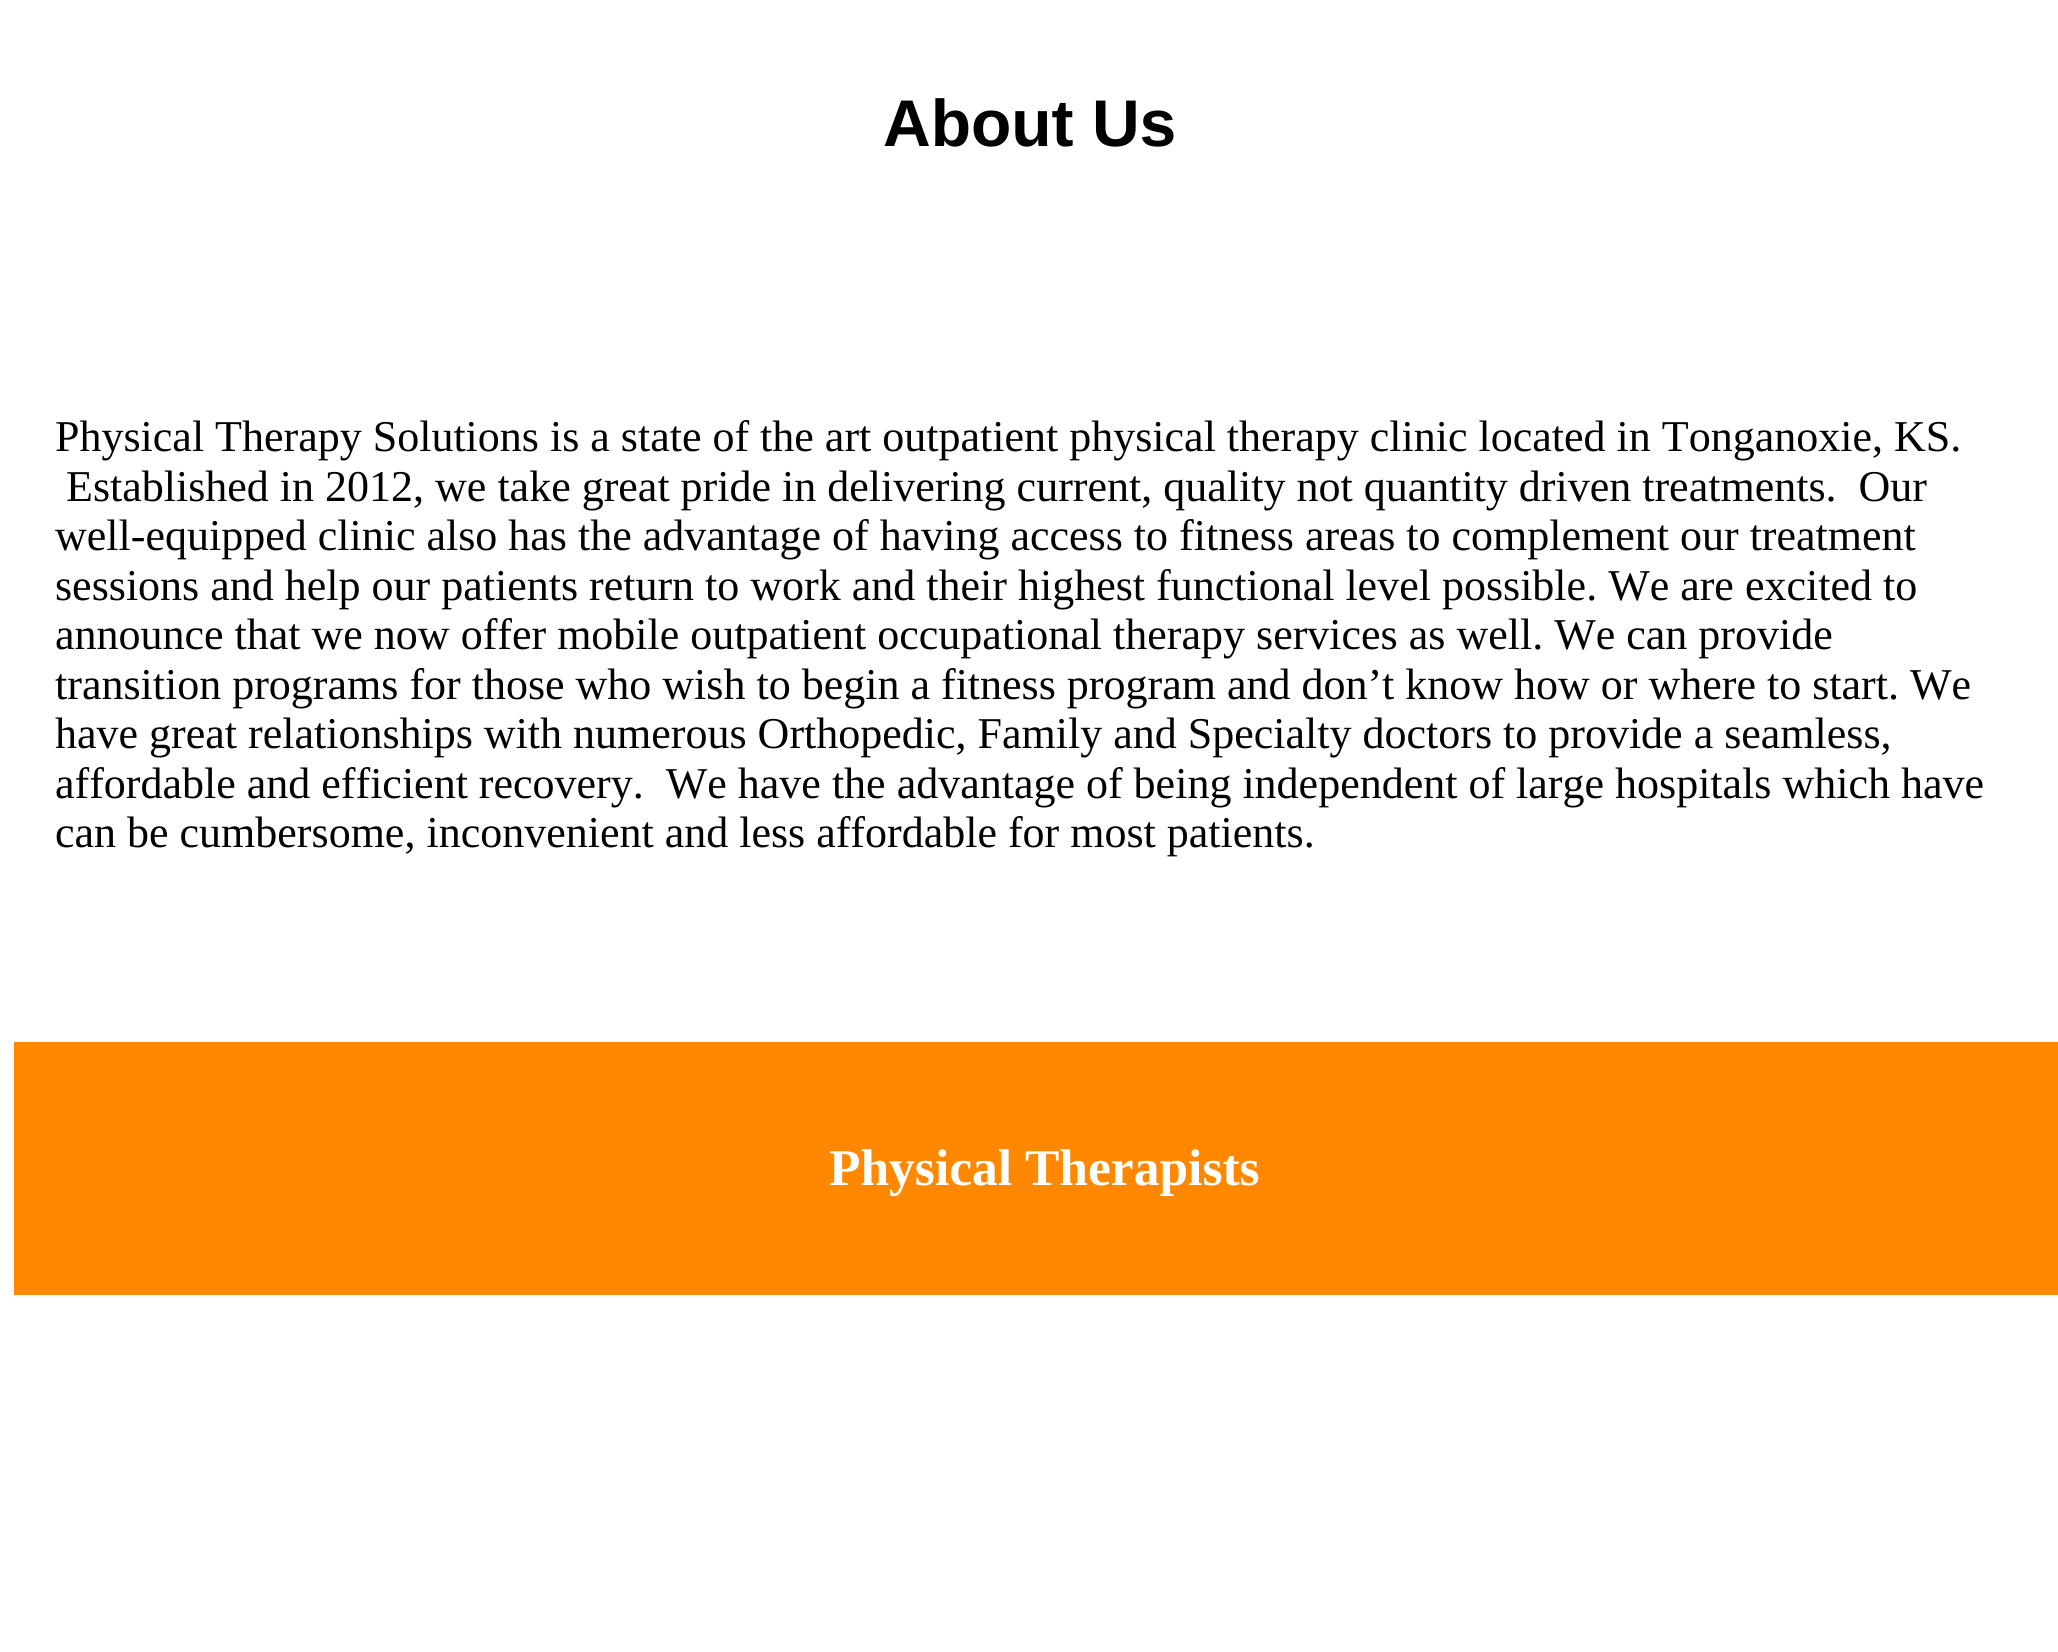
import math
import cairo

surface = cairo.ImageSurface(cairo.FORMAT_RGB24, 2058, 1652)
cr = cairo.Context(surface)
options = cairo.FontOptions()
options.set_hint_metrics(cairo.HINT_METRICS_OFF)
options.set_hint_style(cairo.HINT_STYLE_NONE)
cr.set_font_options(options)
cr.set_miter_limit(4)


def rgb(code):
    cr.set_source_rgb(*(v / 255 for v in bytes.fromhex(code[-6:])))


rgb("#ffffff")
cr.paint()
rgb("#ff8800")
cr.rectangle(14, 1042, 2044, 253)
cr.fill()
cr.select_font_face("Liberation Sans", cairo.FONT_SLANT_NORMAL, cairo.FONT_WEIGHT_BOLD)
cr.set_font_size(66)
rgb("#000000")
cr.move_to(883, 146)
cr.show_text("About Us")
cr.select_font_face("Liberation Serif")
cr.set_font_size(44)
for x, y, s in [
    (55, 451, "Physical Therapy Solutions is a state of the art outpatient physical therapy clinic located in Tonganoxie, KS."),
    (66, 501, "Established in 2012, we take great pride in delivering current, quality not quantity driven treatments.  Our"),
    (55, 550, "well-equipped clinic also has the advantage of having access to fitness areas to complement our treatment"),
    (55, 600, "sessions and help our patients return to work and their highest functional level possible. We are excited to"),
    (55, 649, "announce that we now offer mobile outpatient occupational therapy services as well. We can provide"),
    (55, 699, "transition programs for those who wish to begin a fitness program and don’t know how or where to start. We"),
    (55, 748, "have great relationships with numerous Orthopedic, Family and Specialty doctors to provide a seamless,"),
    (55, 798, "affordable and efficient recovery.  We have the advantage of being independent of large hospitals which have"),
    (55, 847, "can be cumbersome, inconvenient and less affordable for most patients."),
]:
    cr.move_to(x, y)
    cr.show_text(s)
cr.select_font_face("Liberation Serif", cairo.FONT_SLANT_NORMAL, cairo.FONT_WEIGHT_BOLD)
cr.set_font_size(51.5)
rgb("#ffffff")
cr.move_to(829, 1185)
cr.show_text("Physical Therapists")
surface.write_to_png("page.png")
